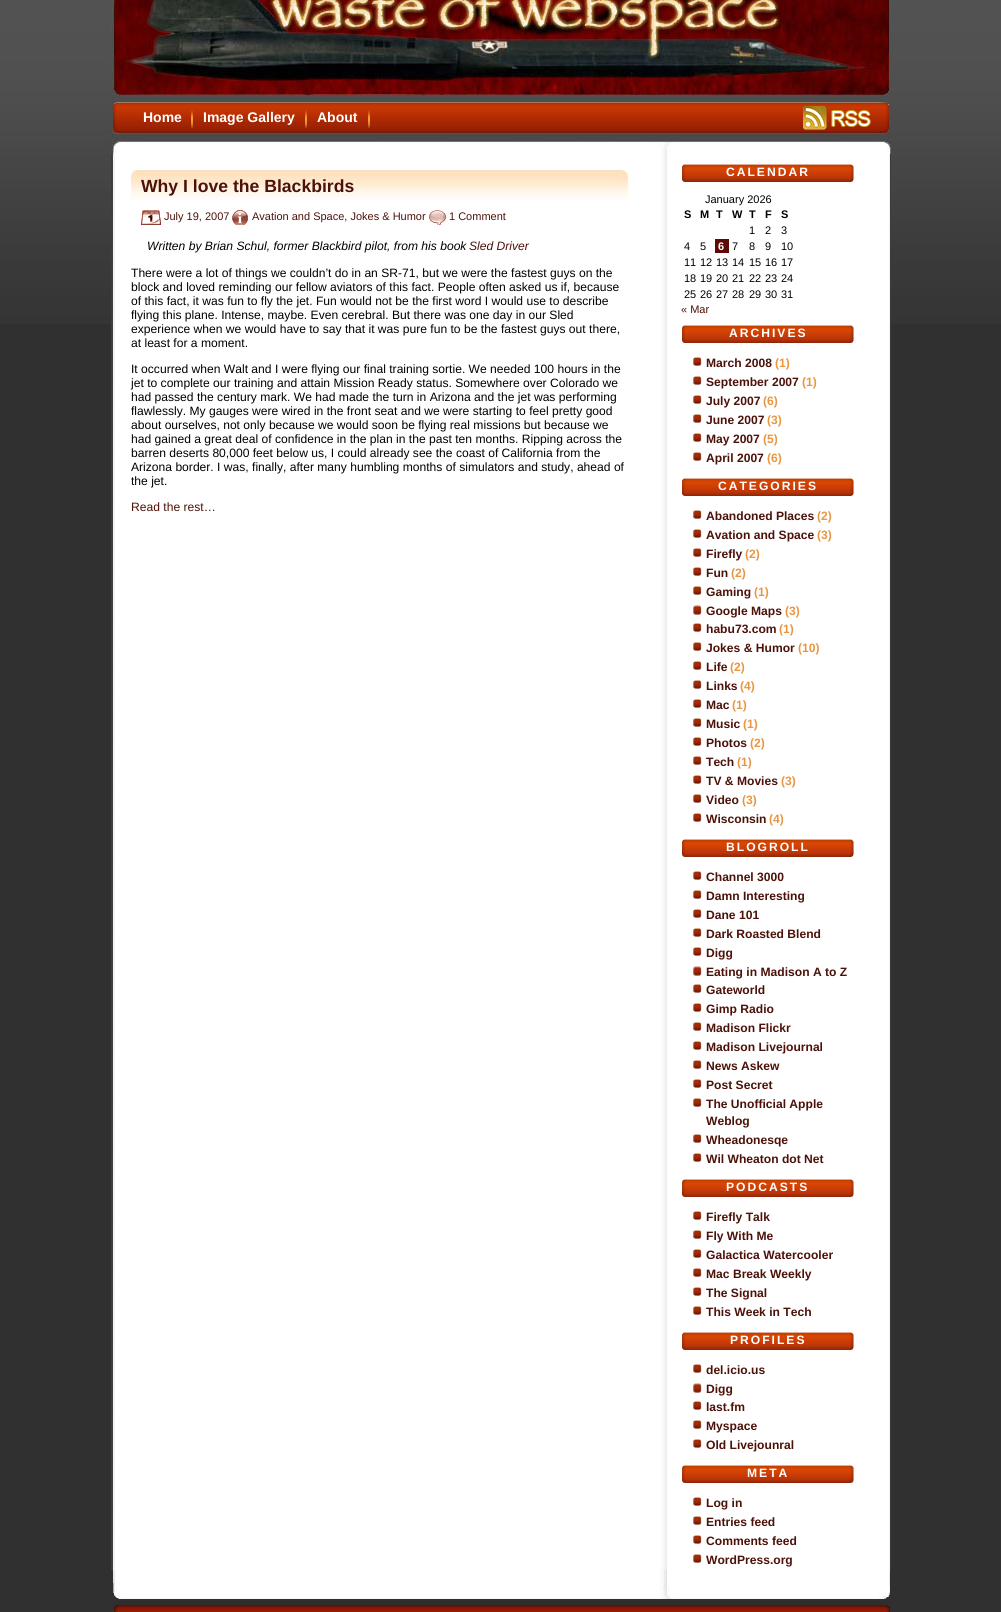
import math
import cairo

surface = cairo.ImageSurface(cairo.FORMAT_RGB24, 1001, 1612)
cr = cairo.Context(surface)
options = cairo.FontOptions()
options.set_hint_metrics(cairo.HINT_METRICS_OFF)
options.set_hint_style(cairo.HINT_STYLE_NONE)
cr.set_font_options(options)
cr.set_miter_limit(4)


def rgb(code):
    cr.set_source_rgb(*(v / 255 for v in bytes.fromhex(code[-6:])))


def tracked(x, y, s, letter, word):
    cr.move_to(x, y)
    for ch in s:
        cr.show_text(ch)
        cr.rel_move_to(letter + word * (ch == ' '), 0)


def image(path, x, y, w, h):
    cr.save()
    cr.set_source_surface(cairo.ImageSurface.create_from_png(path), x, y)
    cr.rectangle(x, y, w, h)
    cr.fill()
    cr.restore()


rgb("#303030")
cr.paint()
image("img/1.png", 0, 0, 1001, 324)
image("img/2.png", 111, 0, 780, 154)
image("img/3.png", 191, 110, 2, 18)
image("img/3.png", 305, 110, 2, 18)
image("img/3.png", 368, 110, 2, 18)
image("img/4.png", 803, 106, 68, 24)
image("img/5.png", 111, 154, 780, 1416)
image("img/6.png", 131, 169, 500, 32)
image("img/7.png", 141, 210, 20, 15)
image("img/8.png", 232, 210, 16, 15)
image("img/9.png", 429, 210, 17, 15)
image("img/10.png", 682, 164, 172, 18)
rgb("#5d0a05")
cr.rectangle(715, 239, 14, 14)
cr.fill()
image("img/10.png", 682, 325, 172, 18)
image("img/11.png", 693, 357, 9, 9)
image("img/11.png", 693, 376, 9, 9)
image("img/11.png", 693, 395, 9, 9)
image("img/11.png", 693, 414, 9, 9)
image("img/11.png", 693, 433, 9, 9)
image("img/11.png", 693, 452, 9, 9)
image("img/10.png", 682, 478, 172, 18)
image("img/11.png", 693, 510, 9, 9)
image("img/11.png", 693, 529, 9, 9)
image("img/11.png", 693, 548, 9, 9)
image("img/11.png", 693, 567, 9, 9)
image("img/11.png", 693, 586, 9, 9)
image("img/12.png", 693, 605, 9, 10)
image("img/11.png", 693, 623, 9, 9)
image("img/11.png", 693, 642, 9, 9)
image("img/11.png", 693, 661, 9, 9)
image("img/11.png", 693, 680, 9, 9)
image("img/11.png", 693, 699, 9, 9)
image("img/11.png", 693, 718, 9, 9)
image("img/11.png", 693, 737, 9, 9)
image("img/11.png", 693, 756, 9, 9)
image("img/11.png", 693, 775, 9, 9)
image("img/11.png", 693, 794, 9, 9)
image("img/11.png", 693, 813, 9, 9)
image("img/10.png", 682, 839, 172, 18)
image("img/11.png", 693, 871, 9, 9)
image("img/11.png", 693, 890, 9, 9)
image("img/11.png", 693, 909, 9, 9)
image("img/11.png", 693, 928, 9, 9)
image("img/11.png", 693, 947, 9, 9)
image("img/12.png", 693, 966, 9, 10)
image("img/11.png", 693, 984, 9, 9)
image("img/11.png", 693, 1003, 9, 9)
image("img/11.png", 693, 1022, 9, 9)
image("img/11.png", 693, 1041, 9, 9)
image("img/11.png", 693, 1060, 9, 9)
image("img/11.png", 693, 1079, 9, 9)
image("img/11.png", 693, 1098, 9, 9)
image("img/11.png", 693, 1134, 9, 9)
image("img/11.png", 693, 1153, 9, 9)
image("img/10.png", 682, 1179, 172, 18)
image("img/11.png", 693, 1211, 9, 9)
image("img/11.png", 693, 1230, 9, 9)
image("img/11.png", 693, 1249, 9, 9)
image("img/11.png", 693, 1268, 9, 9)
image("img/11.png", 693, 1287, 9, 9)
image("img/11.png", 693, 1306, 9, 9)
image("img/10.png", 682, 1332, 172, 18)
image("img/11.png", 693, 1364, 9, 9)
image("img/12.png", 693, 1383, 9, 10)
image("img/11.png", 693, 1401, 9, 9)
image("img/11.png", 693, 1420, 9, 9)
image("img/11.png", 693, 1439, 9, 9)
image("img/10.png", 682, 1465, 172, 18)
image("img/11.png", 693, 1497, 9, 9)
image("img/11.png", 693, 1516, 9, 9)
image("img/11.png", 693, 1535, 9, 9)
image("img/11.png", 693, 1554, 9, 9)
image("img/13.png", 111, 1570, 780, 42)
cr.select_font_face("Liberation Sans", cairo.FONT_SLANT_NORMAL, cairo.FONT_WEIGHT_BOLD)
cr.set_font_size(14)
rgb("#ffffff")
for x, y, s in [
    (143, 122, "Home"),
    (203, 122, "Image Gallery"),
    (317, 122, "About"),
]:
    cr.move_to(x, y)
    cr.show_text(s)
cr.set_font_size(17.6)
rgb("#4c1209")
cr.move_to(141, 192)
cr.show_text("Why I love the Blackbirds")
cr.select_font_face("Liberation Sans")
cr.set_font_size(11)
for x, y, s in [
    (164, 220, "July 19, 2007"),
    (252, 220, "Avation and Space, Jokes & Humor"),
    (449, 220, "1 Comment"),
]:
    cr.move_to(x, y)
    cr.show_text(s)
cr.select_font_face("Liberation Sans", cairo.FONT_SLANT_ITALIC)
cr.set_font_size(12.1)
rgb("#000000")
cr.move_to(147, 250)
cr.show_text("Written by Brian Schul, former Blackbird pilot, from his book")
rgb("#4c1209")
cr.move_to(469, 250)
cr.show_text("Sled Driver")
cr.select_font_face("Liberation Sans")
rgb("#000000")
for x, y, s in [
    (131, 277, "There were a lot of things we couldn’t do in an SR-71, but we were the fastest guys on the"),
    (131, 291, "block and loved reminding our fellow aviators of this fact. People often asked us if, because"),
    (131, 305, "of this fact, it was fun to fly the jet. Fun would not be the first word I would use to describe"),
    (131, 319, "flying this plane. Intense, maybe. Even cerebral. But there was one day in our Sled"),
    (131, 333, "experience when we would have to say that it was pure fun to be the fastest guys out there,"),
    (131, 347, "at least for a moment."),
    (131, 373, "It occurred when Walt and I were flying our final training sortie. We needed 100 hours in the"),
    (131, 387, "jet to complete our training and attain Mission Ready status. Somewhere over Colorado we"),
    (131, 401, "had passed the century mark. We had made the turn in Arizona and the jet was performing"),
    (131, 415, "flawlessly. My gauges were wired in the front seat and we were starting to feel pretty good"),
    (131, 429, "about ourselves, not only because we would soon be flying real missions but because we"),
    (131, 443, "had gained a great deal of confidence in the plan in the past ten months. Ripping across the"),
    (131, 457, "barren deserts 80,000 feet below us, I could already see the coast of California from the"),
    (131, 471, "Arizona border. I was, finally, after many humbling months of simulators and study, ahead of"),
    (131, 485, "the jet."),
]:
    cr.move_to(x, y)
    cr.show_text(s)
rgb("#4c1209")
cr.move_to(131, 511)
cr.show_text("Read the rest…")
cr.select_font_face("Liberation Sans", cairo.FONT_SLANT_NORMAL, cairo.FONT_WEIGHT_BOLD)
rgb("#ffffff")
tracked(726, 176, "CALENDAR", 2, 0)
cr.select_font_face("Liberation Sans")
cr.set_font_size(11)
rgb("#000000")
cr.move_to(705, 203)
cr.show_text("January 2026")
cr.select_font_face("Liberation Sans", cairo.FONT_SLANT_NORMAL, cairo.FONT_WEIGHT_BOLD)
for x, y, s in [
    (684, 218, "S"),
    (700, 218, "M"),
    (716, 218, "T"),
    (732, 218, "W"),
    (749, 218, "T"),
    (765, 218, "F"),
    (781, 218, "S"),
]:
    cr.move_to(x, y)
    cr.show_text(s)
cr.select_font_face("Liberation Sans")
for x, y, s in [
    (749, 234, "1"),
    (765, 234, "2"),
    (781, 234, "3"),
    (684, 250, "4"),
    (700, 250, "5"),
]:
    cr.move_to(x, y)
    cr.show_text(s)
cr.select_font_face("Liberation Sans", cairo.FONT_SLANT_NORMAL, cairo.FONT_WEIGHT_BOLD)
rgb("#ffffff")
cr.move_to(718, 250)
cr.show_text("6")
cr.select_font_face("Liberation Sans")
rgb("#000000")
for x, y, s in [
    (732, 250, "7"),
    (749, 250, "8"),
    (765, 250, "9"),
    (781, 250, "10"),
    (684, 266, "11"),
    (700, 266, "12"),
    (716, 266, "13"),
    (732, 266, "14"),
    (749, 266, "15"),
    (765, 266, "16"),
    (781, 266, "17"),
    (684, 282, "18"),
    (700, 282, "19"),
    (716, 282, "20"),
    (732, 282, "21"),
    (749, 282, "22"),
    (765, 282, "23"),
    (781, 282, "24"),
    (684, 298, "25"),
    (700, 298, "26"),
    (716, 298, "27"),
    (732, 298, "28"),
    (749, 298, "29"),
    (765, 298, "30"),
    (781, 298, "31"),
]:
    cr.move_to(x, y)
    cr.show_text(s)
rgb("#4c1209")
cr.move_to(681, 313)
cr.show_text("« Mar")
cr.select_font_face("Liberation Sans", cairo.FONT_SLANT_NORMAL, cairo.FONT_WEIGHT_BOLD)
cr.set_font_size(12.1)
rgb("#ffffff")
tracked(729, 337, "ARCHIVES", 2, 0)
rgb("#4c1209")
cr.move_to(706, 367)
cr.show_text("March 2008")
rgb("#e89642")
cr.move_to(775, 367)
cr.show_text("(1)")
rgb("#4c1209")
cr.move_to(706, 386)
cr.show_text("September 2007")
rgb("#e89642")
cr.move_to(802, 386)
cr.show_text("(1)")
rgb("#4c1209")
cr.move_to(706, 405)
cr.show_text("July 2007")
rgb("#e89642")
cr.move_to(763, 405)
cr.show_text("(6)")
rgb("#4c1209")
cr.move_to(706, 424)
cr.show_text("June 2007")
rgb("#e89642")
cr.move_to(767, 424)
cr.show_text("(3)")
rgb("#4c1209")
cr.move_to(706, 443)
cr.show_text("May 2007")
rgb("#e89642")
cr.move_to(763, 443)
cr.show_text("(5)")
rgb("#4c1209")
cr.move_to(706, 462)
cr.show_text("April 2007")
rgb("#e89642")
cr.move_to(767, 462)
cr.show_text("(6)")
rgb("#ffffff")
tracked(718, 490, "CATEGORIES", 2, 0)
rgb("#4c1209")
cr.move_to(706, 520)
cr.show_text("Abandoned Places")
rgb("#e89642")
cr.move_to(817, 520)
cr.show_text("(2)")
rgb("#4c1209")
cr.move_to(706, 539)
cr.show_text("Avation and Space")
rgb("#e89642")
cr.move_to(817, 539)
cr.show_text("(3)")
rgb("#4c1209")
cr.move_to(706, 558)
cr.show_text("Firefly")
rgb("#e89642")
cr.move_to(745, 558)
cr.show_text("(2)")
rgb("#4c1209")
cr.move_to(706, 577)
cr.show_text("Fun")
rgb("#e89642")
cr.move_to(731, 577)
cr.show_text("(2)")
rgb("#4c1209")
cr.move_to(706, 596)
cr.show_text("Gaming")
rgb("#e89642")
cr.move_to(754, 596)
cr.show_text("(1)")
rgb("#4c1209")
cr.move_to(706, 615)
cr.show_text("Google Maps")
rgb("#e89642")
cr.move_to(785, 615)
cr.show_text("(3)")
rgb("#4c1209")
cr.move_to(706, 633)
cr.show_text("habu73.com")
rgb("#e89642")
cr.move_to(779, 633)
cr.show_text("(1)")
rgb("#4c1209")
cr.move_to(706, 652)
cr.show_text("Jokes & Humor")
rgb("#e89642")
cr.move_to(798, 652)
cr.show_text("(10)")
rgb("#4c1209")
cr.move_to(706, 671)
cr.show_text("Life")
rgb("#e89642")
cr.move_to(730, 671)
cr.show_text("(2)")
rgb("#4c1209")
cr.move_to(706, 690)
cr.show_text("Links")
rgb("#e89642")
cr.move_to(740, 690)
cr.show_text("(4)")
rgb("#4c1209")
cr.move_to(706, 709)
cr.show_text("Mac")
rgb("#e89642")
cr.move_to(732, 709)
cr.show_text("(1)")
rgb("#4c1209")
cr.move_to(706, 728)
cr.show_text("Music")
rgb("#e89642")
cr.move_to(743, 728)
cr.show_text("(1)")
rgb("#4c1209")
cr.move_to(706, 747)
cr.show_text("Photos")
rgb("#e89642")
cr.move_to(750, 747)
cr.show_text("(2)")
rgb("#4c1209")
cr.move_to(706, 766)
cr.show_text("Tech")
rgb("#e89642")
cr.move_to(737, 766)
cr.show_text("(1)")
rgb("#4c1209")
cr.move_to(706, 785)
cr.show_text("TV & Movies")
rgb("#e89642")
cr.move_to(781, 785)
cr.show_text("(3)")
rgb("#4c1209")
cr.move_to(706, 804)
cr.show_text("Video")
rgb("#e89642")
cr.move_to(742, 804)
cr.show_text("(3)")
rgb("#4c1209")
cr.move_to(706, 823)
cr.show_text("Wisconsin")
rgb("#e89642")
cr.move_to(769, 823)
cr.show_text("(4)")
rgb("#ffffff")
tracked(726, 851, "BLOGROLL", 2, 0)
rgb("#4c1209")
for x, y, s in [
    (706, 881, "Channel 3000"),
    (706, 900, "Damn Interesting"),
    (706, 919, "Dane 101"),
    (706, 938, "Dark Roasted Blend"),
    (706, 957, "Digg"),
    (706, 976, "Eating in Madison A to Z"),
    (706, 994, "Gateworld"),
    (706, 1013, "Gimp Radio"),
    (706, 1032, "Madison Flickr"),
    (706, 1051, "Madison Livejournal"),
    (706, 1070, "News Askew"),
    (706, 1089, "Post Secret"),
    (706, 1108, "The Unofficial Apple"),
    (706, 1125, "Weblog"),
    (706, 1144, "Wheadonesqe"),
    (706, 1163, "Wil Wheaton dot Net"),
]:
    cr.move_to(x, y)
    cr.show_text(s)
rgb("#ffffff")
tracked(726, 1191, "PODCASTS", 2, 0)
rgb("#4c1209")
for x, y, s in [
    (706, 1221, "Firefly Talk"),
    (706, 1240, "Fly With Me"),
    (706, 1259, "Galactica Watercooler"),
    (706, 1278, "Mac Break Weekly"),
    (706, 1297, "The Signal"),
    (706, 1316, "This Week in Tech"),
]:
    cr.move_to(x, y)
    cr.show_text(s)
rgb("#ffffff")
tracked(730, 1344, "PROFILES", 2, 0)
rgb("#4c1209")
for x, y, s in [
    (706, 1374, "del.icio.us"),
    (706, 1393, "Digg"),
    (706, 1411, "last.fm"),
    (706, 1430, "Myspace"),
    (706, 1449, "Old Livejounral"),
]:
    cr.move_to(x, y)
    cr.show_text(s)
rgb("#ffffff")
tracked(747, 1477, "META", 2, 0)
rgb("#4c1209")
for x, y, s in [
    (706, 1507, "Log in"),
    (706, 1526, "Entries feed"),
    (706, 1545, "Comments feed"),
    (706, 1564, "WordPress.org"),
]:
    cr.move_to(x, y)
    cr.show_text(s)
surface.write_to_png("page.png")
